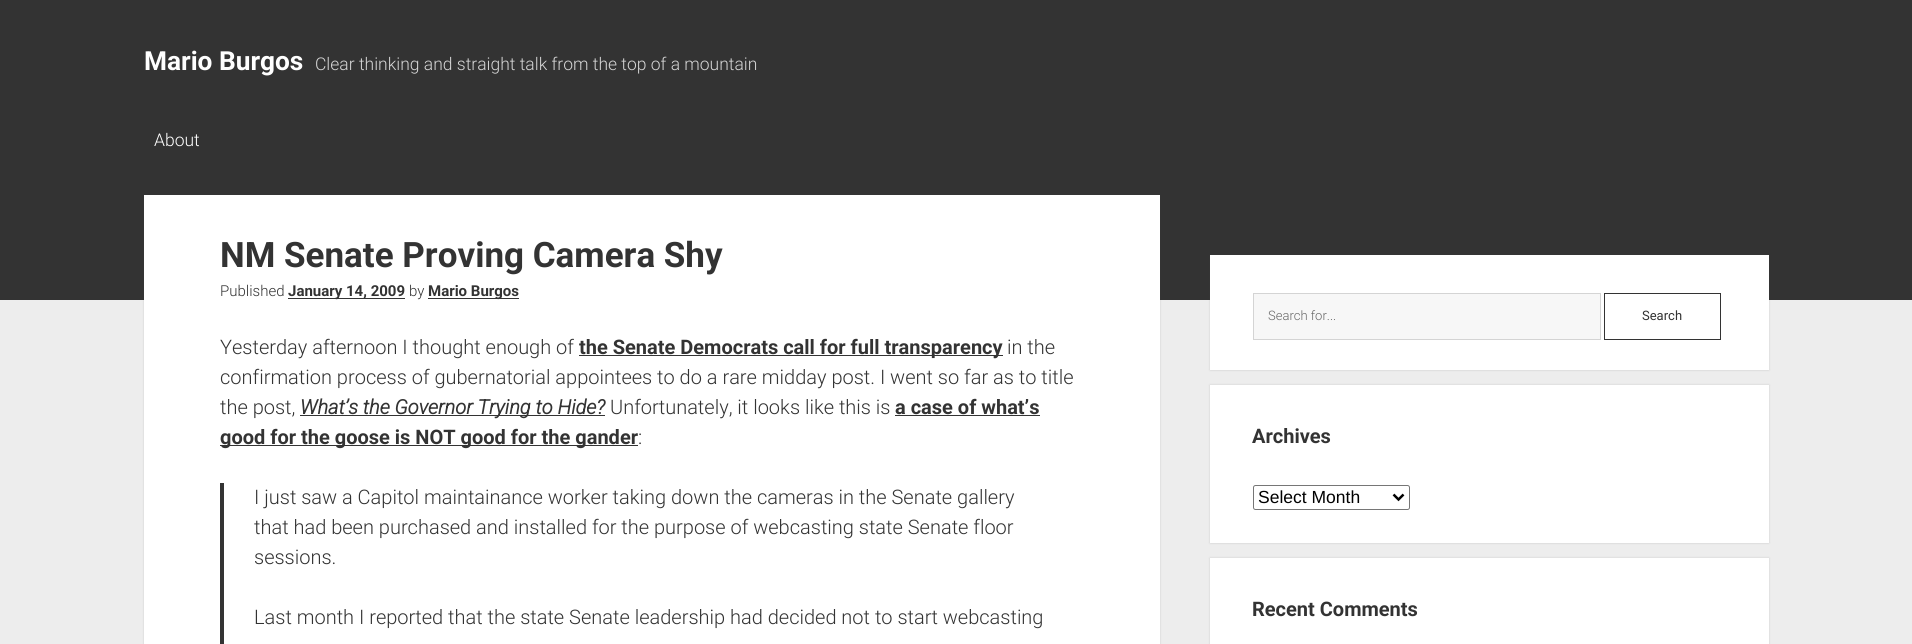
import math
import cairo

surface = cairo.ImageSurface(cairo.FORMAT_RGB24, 1912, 644)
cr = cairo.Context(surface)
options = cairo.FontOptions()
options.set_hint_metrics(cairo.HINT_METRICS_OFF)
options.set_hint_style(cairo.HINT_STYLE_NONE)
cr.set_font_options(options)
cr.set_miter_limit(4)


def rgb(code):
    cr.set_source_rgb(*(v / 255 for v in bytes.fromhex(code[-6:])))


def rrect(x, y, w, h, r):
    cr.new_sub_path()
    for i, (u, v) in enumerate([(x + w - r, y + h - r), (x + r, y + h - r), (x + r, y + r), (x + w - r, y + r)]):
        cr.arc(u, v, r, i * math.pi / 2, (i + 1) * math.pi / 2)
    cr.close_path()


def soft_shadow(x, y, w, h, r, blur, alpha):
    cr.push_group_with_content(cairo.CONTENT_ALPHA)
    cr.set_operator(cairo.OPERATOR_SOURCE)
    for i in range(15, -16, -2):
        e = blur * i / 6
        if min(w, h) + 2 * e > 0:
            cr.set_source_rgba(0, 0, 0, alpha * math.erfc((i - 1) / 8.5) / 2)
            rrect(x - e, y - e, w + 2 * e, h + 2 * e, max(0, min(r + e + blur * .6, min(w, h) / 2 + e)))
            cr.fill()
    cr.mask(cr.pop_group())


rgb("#ededed")
cr.paint()
rgb("#333333")
cr.rectangle(0, 0, 1912, 300)
cr.fill()
rgb("#3a3a3a")
soft_shadow(144, 195, 1016, 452, 0, 1, 0.2)
for x, y, w, h, color in [
    (144, 195, 1016, 449, "#ffffff"),
    (288, 298, 117, 1, "#333333"),
    (428, 298, 91, 1, "#333333"),
    (579, 355, 424, 1, "#333333"),
    (300, 415, 305, 1, "#333333"),
    (895, 415, 145, 1, "#333333"),
    (220, 445, 418, 1, "#333333"),
    (220, 483, 4, 161, "#333333"),
]:
    rgb(color)
    cr.rectangle(x, y, w, h)
    cr.fill()
rgb("#3a3a3a")
soft_shadow(1210, 255, 559, 115, 0, 1, 0.2)
rgb("#ffffff")
cr.rectangle(1210, 255, 559, 115)
cr.fill()
rgb("#f7f7f7")
cr.rectangle(1253.5, 293.5, 347, 46)
cr.fill_preserve()
rgb("#d4d4d4")
cr.set_line_width(1)
cr.stroke()
cr.rectangle(1604.5, 293.5, 116, 46)
rgb("#333333")
cr.stroke()
rgb("#3a3a3a")
soft_shadow(1210, 385, 559, 158, 0, 1, 0.2)
rgb("#ffffff")
cr.rectangle(1210, 385, 559, 158)
cr.fill()
rrect(1253.5, 485.5, 156, 24, 2)
rgb("#767676")
cr.stroke()
cr.new_path()
cr.move_to(1393.5, 494.5)
cr.line_to(1398.5, 499.5)
cr.line_to(1403.5, 494.5)
rgb("#000000")
cr.set_line_width(2.5)
cr.stroke()
rgb("#3a3a3a")
soft_shadow(1210, 558, 559, 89, 0, 1, 0.2)
rgb("#ffffff")
cr.rectangle(1210, 558, 559, 86)
cr.fill()
cr.select_font_face("Roboto", cairo.FONT_SLANT_NORMAL, cairo.FONT_WEIGHT_BOLD)
cr.set_font_size(26.25)
cr.move_to(144, 70)
cr.show_text("Mario Burgos")
cr.select_font_face("Roboto Light")
cr.set_font_size(17.5)
rgb("#d4d4d4")
cr.move_to(315, 70)
cr.show_text("Clear thinking and straight talk from the top of a mountain")
rgb("#ffffff")
cr.move_to(154, 146)
cr.show_text("About")
cr.select_font_face("Roboto", cairo.FONT_SLANT_NORMAL, cairo.FONT_WEIGHT_BOLD)
cr.set_font_size(35)
rgb("#333333")
cr.move_to(220, 267)
cr.show_text("NM Senate Proving Camera Shy")
cr.select_font_face("Roboto Light")
cr.set_font_size(15)
cr.move_to(220, 296)
cr.show_text("Published")
cr.select_font_face("Roboto", cairo.FONT_SLANT_NORMAL, cairo.FONT_WEIGHT_BOLD)
cr.move_to(288, 296)
cr.show_text("January 14, 2009")
cr.select_font_face("Roboto Light")
cr.move_to(409, 296)
cr.show_text("by")
cr.select_font_face("Roboto", cairo.FONT_SLANT_NORMAL, cairo.FONT_WEIGHT_BOLD)
cr.move_to(428, 296)
cr.show_text("Mario Burgos")
cr.select_font_face("Roboto Light")
cr.set_font_size(20)
cr.move_to(220, 354)
cr.show_text("Yesterday afternoon I thought enough of")
cr.select_font_face("Roboto", cairo.FONT_SLANT_NORMAL, cairo.FONT_WEIGHT_BOLD)
cr.move_to(579, 354)
cr.show_text("the Senate Democrats call for full transparency")
cr.select_font_face("Roboto Light")
for x, y, s in [
    (1007, 354, "in the"),
    (220, 384, "confirmation process of gubernatorial appointees to do a rare midday post. I went so far as to title"),
    (220, 414, "the post,"),
]:
    cr.move_to(x, y)
    cr.show_text(s)
cr.select_font_face("Roboto", cairo.FONT_SLANT_ITALIC, cairo.FONT_WEIGHT_BOLD)
cr.move_to(300, 414)
cr.show_text("What’s the Governor Trying to Hide?")
cr.select_font_face("Roboto Light")
cr.move_to(610, 414)
cr.show_text("Unfortunately, it looks like this is")
cr.select_font_face("Roboto", cairo.FONT_SLANT_NORMAL, cairo.FONT_WEIGHT_BOLD)
cr.move_to(895, 414)
cr.show_text("a case of what’s")
cr.move_to(220, 444)
cr.show_text("good for the goose is NOT good for the gander")
cr.select_font_face("Roboto Light")
for x, y, s in [
    (638, 444, ":"),
    (254, 504, "I just saw a Capitol maintainance worker taking down the cameras in the Senate gallery"),
    (254, 534, "that had been purchased and installed for the purpose of webcasting state Senate floor"),
    (254, 564, "sessions."),
    (254, 624, "Last month I reported that the state Senate leadership had decided not to start webcasting"),
]:
    cr.move_to(x, y)
    cr.show_text(s)
cr.set_font_size(13)
rgb("#666666")
cr.move_to(1268, 320)
cr.show_text("Search for...")
cr.select_font_face("Roboto")
rgb("#333333")
cr.move_to(1642, 320)
cr.show_text("Search")
cr.select_font_face("Roboto", cairo.FONT_SLANT_NORMAL, cairo.FONT_WEIGHT_BOLD)
cr.set_font_size(20)
cr.move_to(1252, 443)
cr.show_text("Archives")
cr.select_font_face("Liberation Sans")
cr.set_font_size(17.5)
rgb("#000000")
cr.move_to(1258, 503)
cr.show_text("Select Month")
cr.select_font_face("Roboto", cairo.FONT_SLANT_NORMAL, cairo.FONT_WEIGHT_BOLD)
cr.set_font_size(20)
rgb("#333333")
cr.move_to(1252, 616)
cr.show_text("Recent Comments")
surface.write_to_png("page.png")
